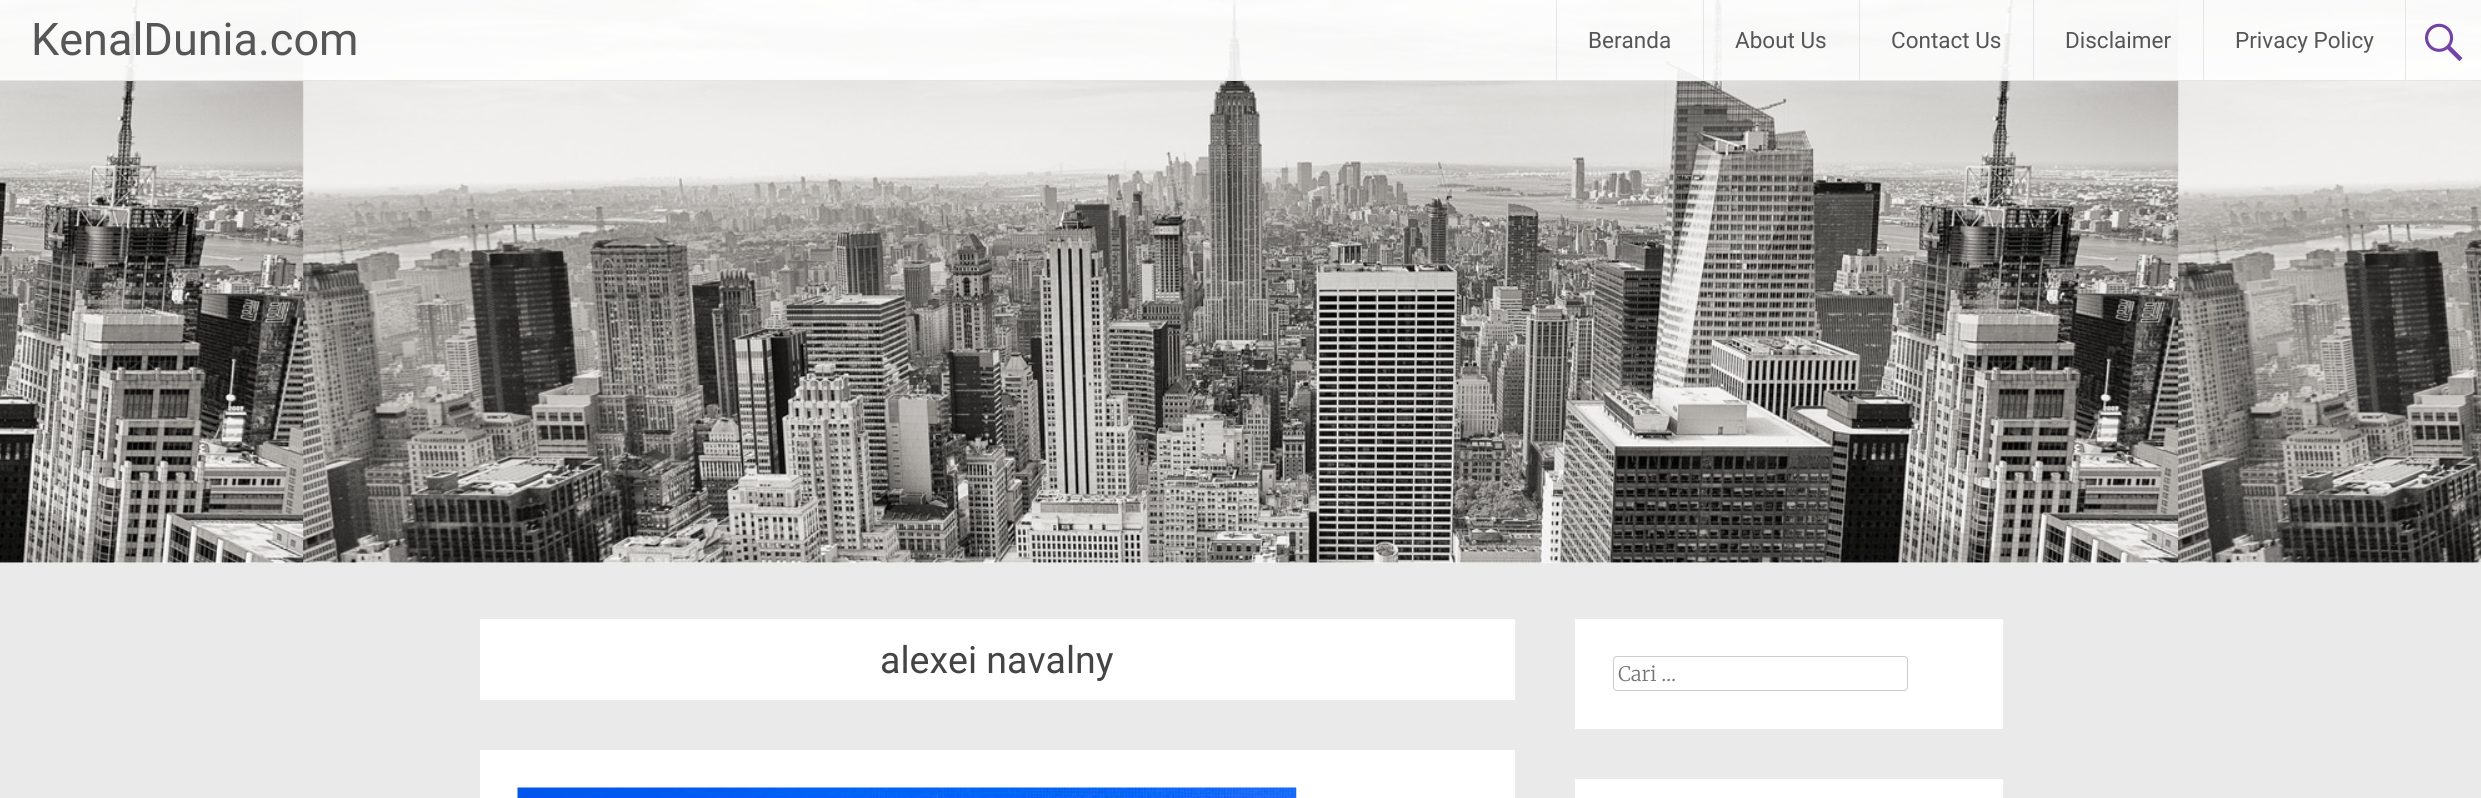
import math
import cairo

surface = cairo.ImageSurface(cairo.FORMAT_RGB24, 2481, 798)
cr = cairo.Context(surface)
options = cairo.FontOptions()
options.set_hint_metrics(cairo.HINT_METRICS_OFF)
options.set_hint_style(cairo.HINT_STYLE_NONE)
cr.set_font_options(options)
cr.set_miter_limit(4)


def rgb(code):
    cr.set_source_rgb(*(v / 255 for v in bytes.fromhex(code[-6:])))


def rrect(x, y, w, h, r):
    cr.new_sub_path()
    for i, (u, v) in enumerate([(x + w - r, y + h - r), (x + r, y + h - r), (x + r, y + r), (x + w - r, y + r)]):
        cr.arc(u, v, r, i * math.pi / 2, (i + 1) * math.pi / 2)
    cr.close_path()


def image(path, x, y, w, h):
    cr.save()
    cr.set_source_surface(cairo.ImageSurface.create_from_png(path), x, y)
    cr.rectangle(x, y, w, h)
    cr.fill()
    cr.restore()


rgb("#ffffff")
cr.paint()
image("img/1.png", 0, 0, 2481, 563)
cr.set_source_rgba(1, 1, 1, 0.9)
cr.rectangle(0, 0, 2481, 81)
cr.fill()
cr.set_source_rgba(0.882, 0.894, 0.902, 0.9)
cr.rectangle(0, 80, 2481, 1)
cr.fill()
cr.rectangle(1556, 0, 1, 80)
cr.fill()
cr.rectangle(1703, 0, 1, 80)
cr.fill()
cr.rectangle(1859, 0, 1, 80)
cr.fill()
rgb("#e3e6e8")
cr.rectangle(2033, 0, 1, 80)
cr.fill()
cr.set_source_rgba(0.882, 0.894, 0.902, 0.9)
cr.rectangle(2203, 0, 1, 80)
cr.fill()
cr.rectangle(2405, 0, 1, 80)
cr.fill()
image("img/2.png", 2425, 23, 38, 39)
for x, y, w, h, color in [
    (0, 563, 2481, 235, "#eaeaea"),
    (480, 619, 1035, 81, "#ffffff"),
    (480, 750, 1035, 48, "#ffffff"),
]:
    rgb(color)
    cr.rectangle(x, y, w, h)
    cr.fill()
image("img/3.png", 517, 787, 780, 11)
cr.rectangle(1575, 619, 428, 110)
cr.fill()
rrect(1613.5, 656.5, 294, 34, 3.5)
rgb("#cccccc")
cr.set_line_width(1)
cr.stroke()
rgb("#ffffff")
cr.rectangle(1575, 779, 428, 19)
cr.fill()
cr.select_font_face("Roboto")
cr.set_font_size(45)
rgb("#565656")
cr.move_to(31, 55)
cr.show_text("KenalDunia.com")
cr.set_font_size(22.5)
for x, y, s in [
    (1588, 48, "Beranda"),
    (1735, 48, "About Us"),
    (1891, 48, "Contact Us"),
    (2065, 48, "Disclaimer"),
    (2235, 48, "Privacy Policy"),
]:
    cr.move_to(x, y)
    cr.show_text(s)
cr.set_font_size(37.5)
rgb("#444444")
cr.move_to(880, 673)
cr.show_text("alexei navalny")
cr.select_font_face("Merriweather Light")
cr.set_font_size(20)
rgb("#757575")
cr.move_to(1618, 681)
cr.show_text("Cari …")
surface.write_to_png("page.png")
